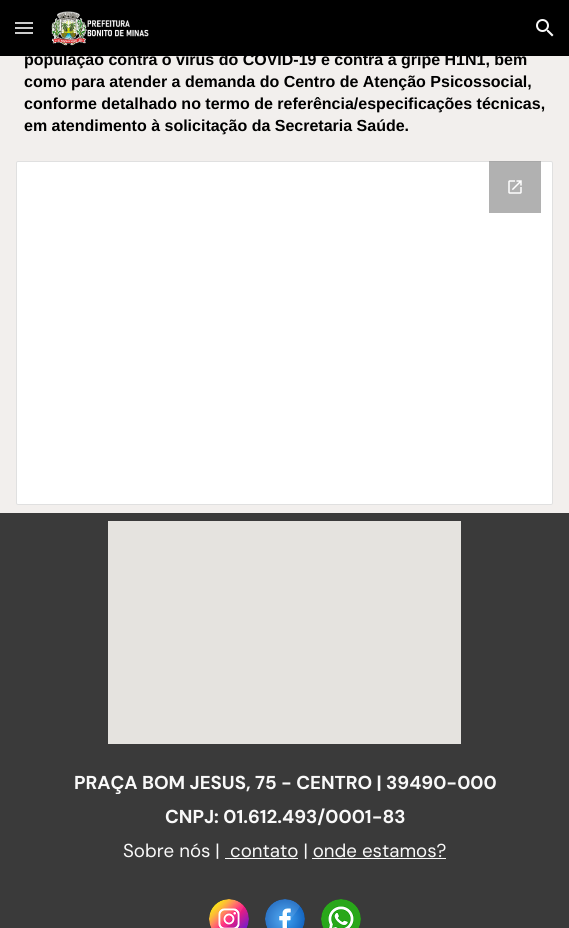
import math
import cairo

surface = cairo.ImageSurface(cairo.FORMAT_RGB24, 569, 928)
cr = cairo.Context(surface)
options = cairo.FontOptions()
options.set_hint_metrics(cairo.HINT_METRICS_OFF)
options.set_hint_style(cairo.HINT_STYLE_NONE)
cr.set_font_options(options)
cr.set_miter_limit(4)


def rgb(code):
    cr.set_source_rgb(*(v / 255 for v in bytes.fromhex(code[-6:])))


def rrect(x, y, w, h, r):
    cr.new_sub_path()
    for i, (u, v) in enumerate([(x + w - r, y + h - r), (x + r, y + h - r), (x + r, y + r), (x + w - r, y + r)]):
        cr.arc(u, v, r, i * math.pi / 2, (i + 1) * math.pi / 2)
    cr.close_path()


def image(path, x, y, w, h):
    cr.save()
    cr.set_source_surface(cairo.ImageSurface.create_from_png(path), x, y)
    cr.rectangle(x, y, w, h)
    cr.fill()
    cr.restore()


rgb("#f2efed")
cr.paint()
rgb("#000000")
cr.rectangle(0, 0, 569, 56)
cr.fill()
image("img/1.png", 51, 11, 98, 35)
image("img/2.png", 536, 19, 18, 18)
for x, y, w, h, color in [
    (15, 22, 18, 2, "#cccccc"),
    (15, 27, 18, 2, "#cccccc"),
    (15, 32, 18, 2, "#cccccc"),
]:
    rgb(color)
    cr.rectangle(x, y, w, h)
    cr.fill()
rgb("#ffffff")
rrect(16.5, 161.5, 536, 343, 1.5)
cr.fill_preserve()
rgb("#e0e0e0")
cr.set_line_width(1)
cr.stroke()
cr.set_source_rgba(0.569, 0.569, 0.569, 0.7)
cr.rectangle(489, 161, 52, 52)
cr.fill()
image("img/3.png", 508, 180, 14, 14)
for x, y, w, h, color in [
    (0, 513, 569, 415, "#3a3a3a"),
    (108, 521, 353, 223, "#e5e3df"),
    (225, 858, 73, 1, "#f9f9f9"),
    (312, 858, 134, 1, "#f9f9f9"),
]:
    rgb(color)
    cr.rectangle(x, y, w, h)
    cr.fill()
image("img/4.png", 209, 899, 40, 29)
image("img/5.png", 265, 899, 40, 29)
image("img/6.png", 321, 899, 40, 29)
cr.select_font_face("Liberation Sans", cairo.FONT_SLANT_NORMAL, cairo.FONT_WEIGHT_BOLD)
cr.set_font_size(16)
rgb("#000000")
for x, y, s in [
    (24, 65, "população contra o vírus do COVID-19 e contra a gripe H1N1, bem"),
    (24, 87, "como para atender a demanda do Centro de Atenção Psicossocial,"),
    (24, 109, "conforme detalhado no termo de referência/especificações técnicas,"),
    (24, 131, "em atendimento à solicitação da Secretaria Saúde."),
]:
    cr.move_to(x, y)
    cr.show_text(s)
cr.select_font_face("DM Sans", cairo.FONT_SLANT_NORMAL, cairo.FONT_WEIGHT_BOLD)
cr.set_font_size(18.7)
rgb("#f9f9f9")
cr.move_to(74, 789)
cr.show_text("PRAÇA BOM JESUS, 75 - CENTRO | 39490-000")
cr.move_to(165, 823)
cr.show_text("CNPJ: 01.612.493/0001-83")
cr.select_font_face("DM Sans")
cr.move_to(123, 857)
cr.show_text("Sobre nós |")
cr.move_to(230, 857)
cr.show_text("contato | onde estamos?")
surface.write_to_png("page.png")
